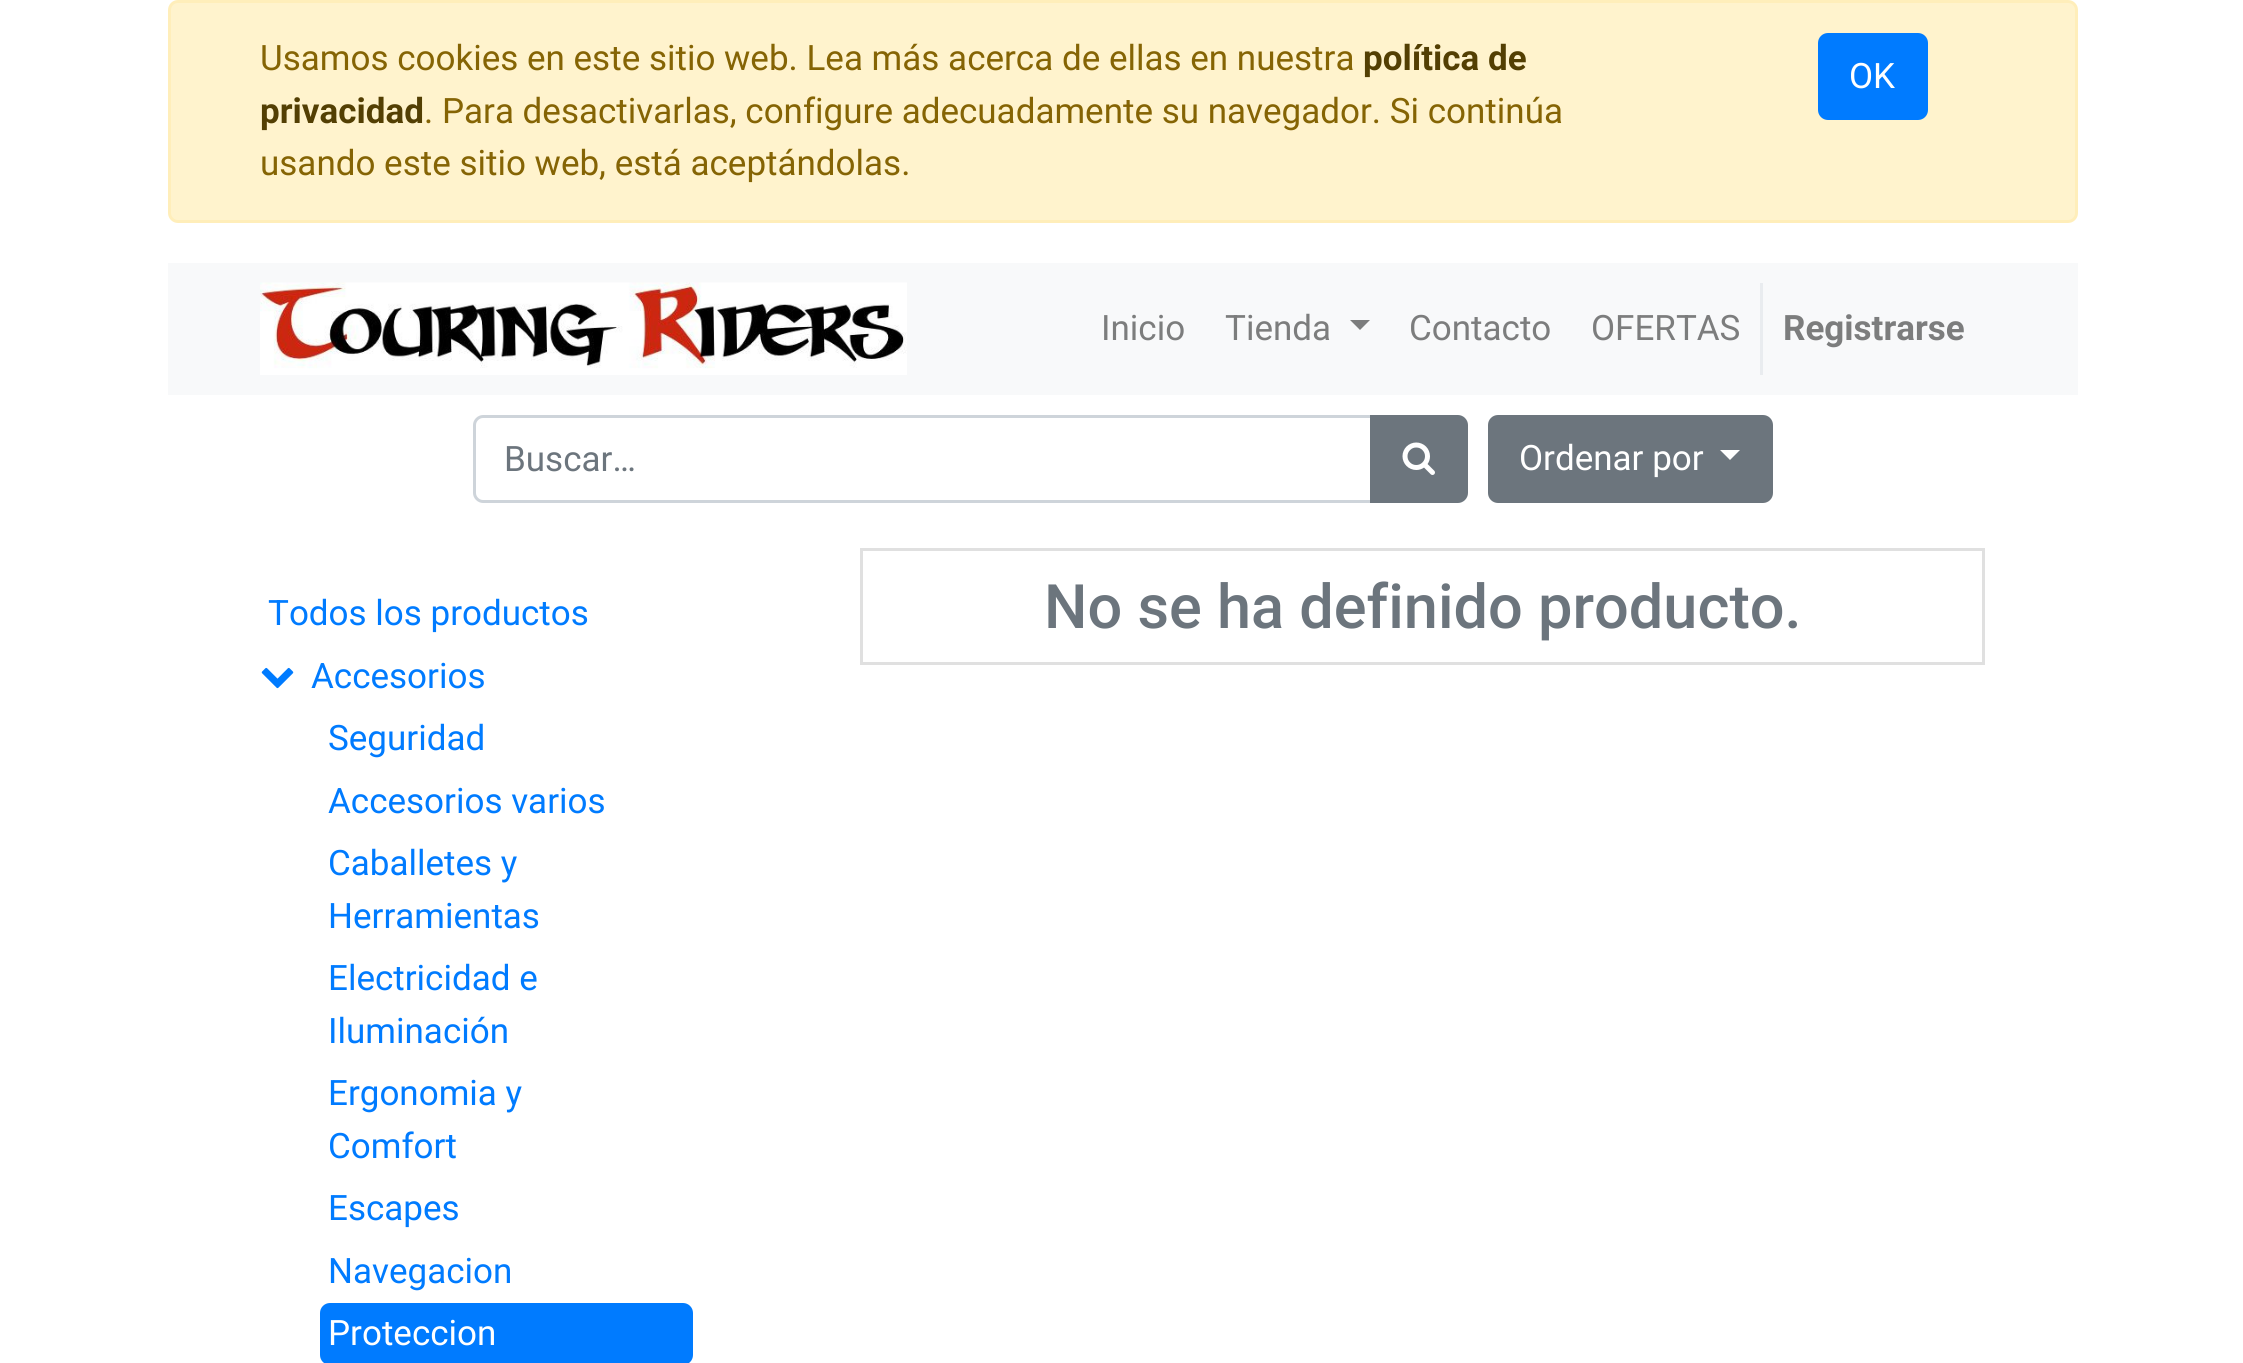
import math
import cairo

surface = cairo.ImageSurface(cairo.FORMAT_RGB24, 2243, 1363)
cr = cairo.Context(surface)
options = cairo.FontOptions()
options.set_hint_metrics(cairo.HINT_METRICS_OFF)
options.set_hint_style(cairo.HINT_STYLE_NONE)
cr.set_font_options(options)
cr.set_miter_limit(4)


def rgb(code):
    cr.set_source_rgb(*(v / 255 for v in bytes.fromhex(code[-6:])))


def rrect(x, y, w, h, r):
    cr.new_sub_path()
    for i, (u, v) in enumerate([(x + w - r, y + h - r), (x + r, y + h - r), (x + r, y + r), (x + w - r, y + r)]):
        cr.arc(u, v, r, i * math.pi / 2, (i + 1) * math.pi / 2)
    cr.close_path()


def image(path, x, y, w, h):
    cr.save()
    cr.set_source_surface(cairo.ImageSurface.create_from_png(path), x, y)
    cr.rectangle(x, y, w, h)
    cr.fill()
    cr.restore()


rgb("#ffffff")
cr.paint()
rgb("#fff3cd")
rrect(169.5, 1.5, 1907, 220, 8.5)
cr.fill_preserve()
rgb("#ffeeba")
cr.set_line_width(3)
cr.stroke()
rgb("#007bff")
rrect(1819.5, 34.5, 107, 84, 8.5)
cr.fill_preserve()
cr.stroke()
rgb("#f8f9fa")
cr.rectangle(168, 263, 1910, 132)
cr.fill()
image("img/1.png", 260, 282, 647, 93)
rgb("#7c7d7d")
cr.new_path()
cr.move_to(1350, 320)
cr.line_to(1370, 320)
cr.line_to(1360, 330)
cr.close_path()
cr.fill()
rgb("#e9ecef")
cr.rectangle(1760, 283, 3, 92)
cr.fill()
cr.new_path()
cr.move_to(483, 416.5)
cr.line_to(1371.5, 416.5)
cr.line_to(1371.5, 501.5)
cr.line_to(483, 501.5)
cr.curve_to(478.5, 501.5, 474.5, 497.5, 474.5, 493)
cr.line_to(474.5, 425)
cr.curve_to(474.5, 420.5, 478.5, 416.5, 483, 416.5)
cr.close_path()
rgb("#ced4da")
cr.stroke()
rgb("#6c757d")
cr.new_path()
cr.move_to(1371.5, 416.5)
cr.line_to(1458, 416.5)
cr.curve_to(1462.5, 416.5, 1466.5, 420.5, 1466.5, 425)
cr.line_to(1466.5, 493)
cr.curve_to(1466.5, 497.5, 1462.5, 501.5, 1458, 501.5)
cr.line_to(1371.5, 501.5)
cr.close_path()
cr.fill_preserve()
cr.stroke()
image("img/2.png", 1402, 442, 33, 33)
rrect(1489.5, 416.5, 282, 85, 8.5)
cr.fill_preserve()
cr.stroke()
rgb("#ffffff")
cr.new_path()
cr.move_to(1720, 450)
cr.line_to(1740, 450)
cr.line_to(1730, 460)
cr.close_path()
cr.fill()
image("img/3.png", 261, 667, 33, 22)
rgb("#007bff")
rrect(320, 1303, 373, 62, 10)
cr.fill()
cr.rectangle(861.5, 549.5, 1122, 114)
rgb("#e0e0e0")
cr.stroke()
cr.select_font_face("Roboto")
cr.set_font_size(35)
rgb("#856404")
cr.move_to(260, 70)
cr.show_text("Usamos cookies en este sitio web. Lea más acerca de ellas en nuestra")
cr.select_font_face("Roboto", cairo.FONT_SLANT_NORMAL, cairo.FONT_WEIGHT_BOLD)
rgb("#533f03")
cr.move_to(1363, 70)
cr.show_text("política de")
cr.move_to(260, 123)
cr.show_text("privacidad")
cr.select_font_face("Roboto")
rgb("#856404")
cr.move_to(424, 123)
cr.show_text(". Para desactivarlas, configure adecuadamente su navegador. Si continúa")
cr.move_to(260, 175)
cr.show_text("usando este sitio web, está aceptándolas.")
rgb("#ffffff")
cr.move_to(1849, 88)
cr.show_text("OK")
rgb("#7c7d7d")
for x, y, s in [
    (1101, 340, "Inicio"),
    (1225, 340, "Tienda"),
    (1409, 340, "Contacto"),
    (1591, 340, "OFERTAS"),
]:
    cr.move_to(x, y)
    cr.show_text(s)
cr.select_font_face("Roboto", cairo.FONT_SLANT_NORMAL, cairo.FONT_WEIGHT_BOLD)
cr.move_to(1783, 340)
cr.show_text("Registrarse")
cr.select_font_face("Roboto")
rgb("#6c757d")
cr.move_to(504, 471)
cr.show_text("Buscar…")
rgb("#ffffff")
cr.move_to(1519, 470)
cr.show_text("Ordenar por")
rgb("#007bff")
for x, y, s in [
    (268, 625, "Todos los productos"),
    (311, 688, "Accesorios"),
    (328, 750, "Seguridad"),
    (328, 813, "Accesorios varios"),
    (328, 875, "Caballetes y"),
    (328, 928, "Herramientas"),
    (328, 990, "Electricidad e"),
    (328, 1043, "Iluminación"),
    (328, 1105, "Ergonomia y"),
    (328, 1158, "Comfort"),
    (328, 1220, "Escapes"),
    (328, 1283, "Navegacion"),
]:
    cr.move_to(x, y)
    cr.show_text(s)
rgb("#ffffff")
cr.move_to(328, 1345)
cr.show_text("Proteccion")
cr.select_font_face("Roboto Medium")
cr.set_font_size(61.25)
rgb("#6c757d")
cr.move_to(1044, 628)
cr.show_text("No se ha definido producto.")
surface.write_to_png("page.png")
